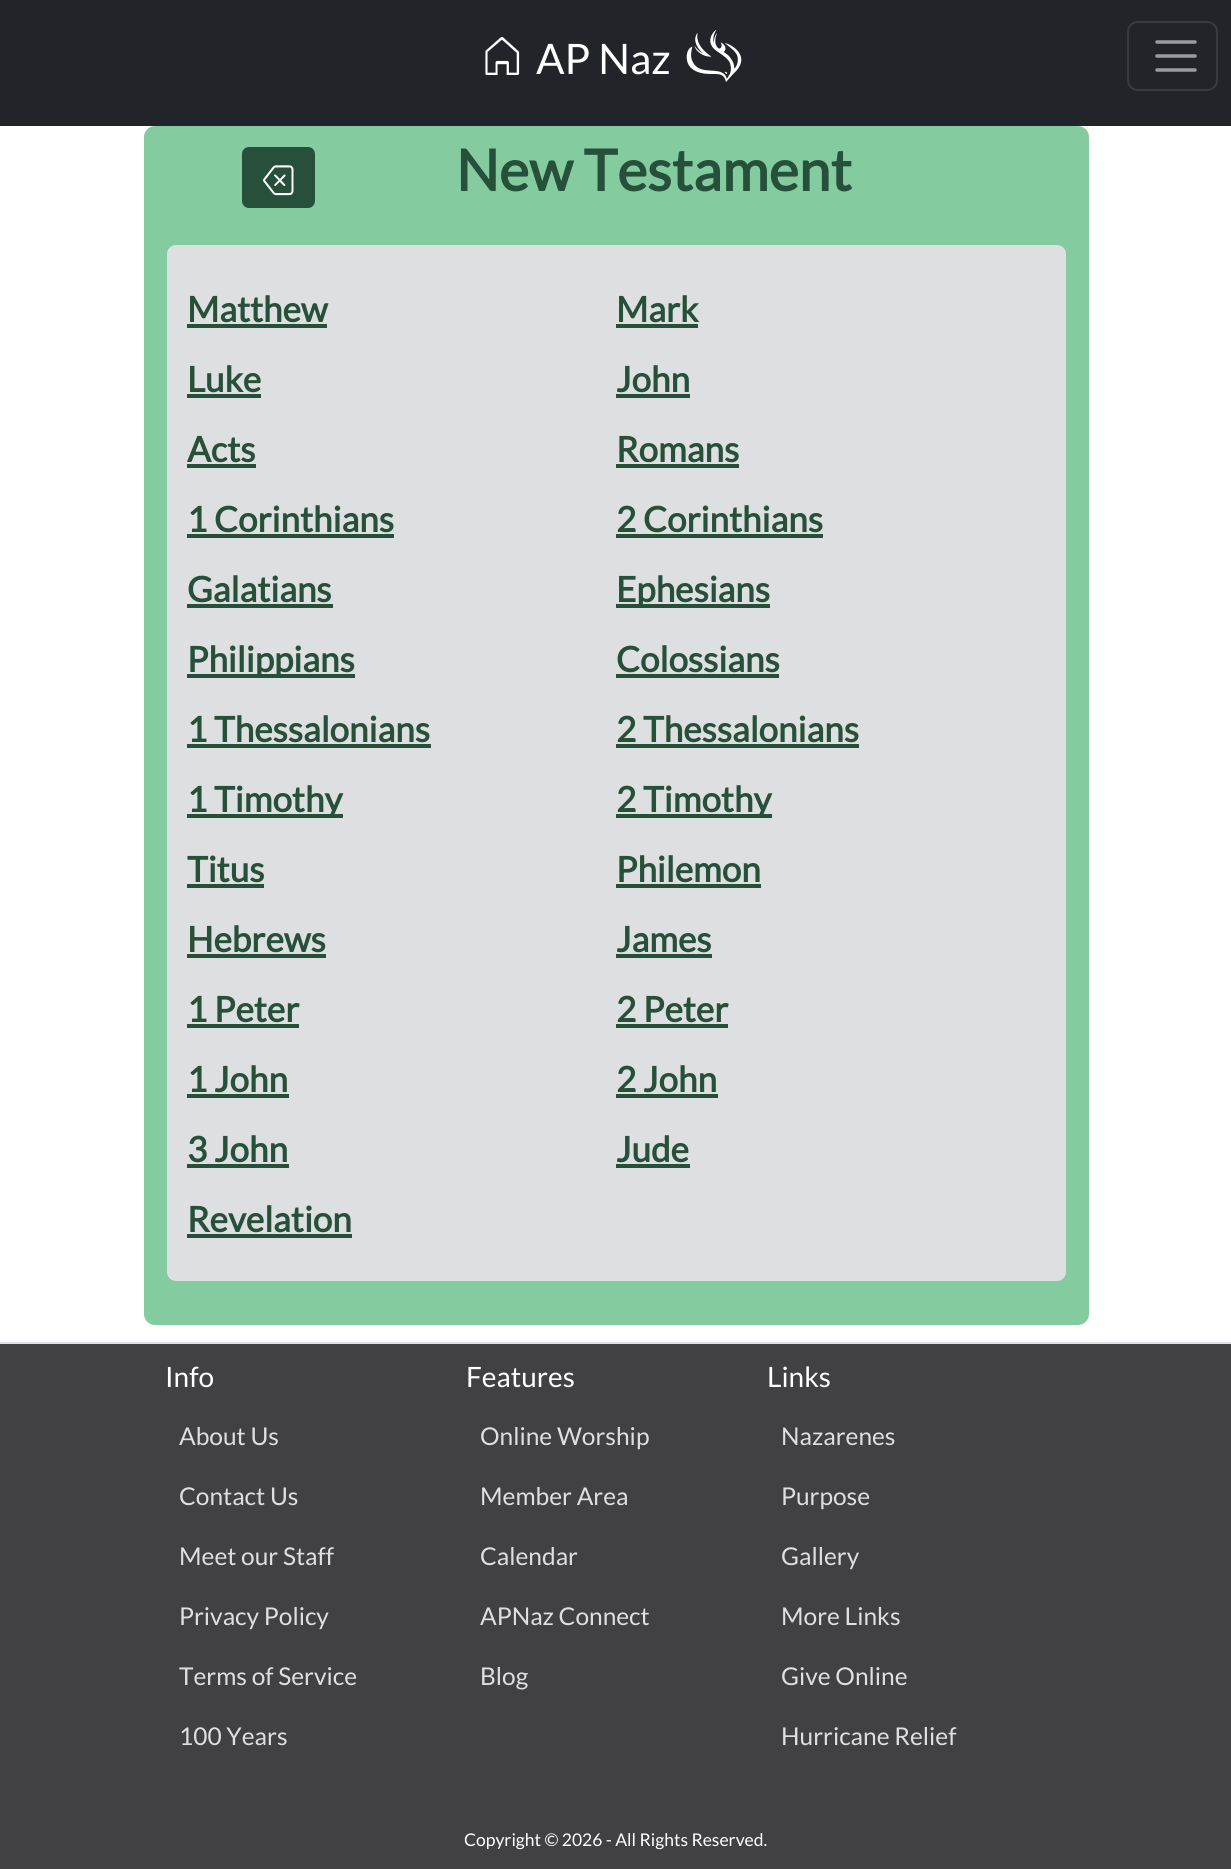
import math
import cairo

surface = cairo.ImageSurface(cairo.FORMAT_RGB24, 1231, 1869)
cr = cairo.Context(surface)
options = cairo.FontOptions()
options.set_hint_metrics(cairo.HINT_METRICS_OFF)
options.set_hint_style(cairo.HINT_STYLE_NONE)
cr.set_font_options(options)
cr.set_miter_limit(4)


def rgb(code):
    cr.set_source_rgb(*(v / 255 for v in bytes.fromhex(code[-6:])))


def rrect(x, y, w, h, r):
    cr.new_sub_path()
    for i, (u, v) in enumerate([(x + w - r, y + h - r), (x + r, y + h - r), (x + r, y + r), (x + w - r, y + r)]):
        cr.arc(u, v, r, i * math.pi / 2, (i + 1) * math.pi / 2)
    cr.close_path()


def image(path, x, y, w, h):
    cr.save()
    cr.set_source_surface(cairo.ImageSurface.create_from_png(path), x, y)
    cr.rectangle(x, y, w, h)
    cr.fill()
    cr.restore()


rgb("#ffffff")
cr.paint()
rgb("#212529")
cr.rectangle(0, 0, 1231, 126)
cr.fill()
image("img/1.png", 485, 37, 35, 38)
image("img/2.png", 686, 30, 56, 52)
rrect(1128, 22, 89, 68, 10)
rgb("#373b3e")
cr.stroke()
cr.new_path()
cr.move_to(1157, 42)
cr.line_to(1195, 42)
cr.move_to(1157, 56)
cr.line_to(1195, 56)
cr.move_to(1157, 70)
cr.line_to(1195, 70)
rgb("#9b9d9f")
cr.set_line_width(3.5)
cr.set_line_cap(cairo.LINE_CAP_ROUND)
cr.stroke()
rgb("#84cba0")
rrect(144, 126, 945, 1199, 11)
cr.fill()
rgb("#265039")
rrect(242, 147, 73, 61, 7)
cr.fill()
image("img/3.png", 263, 165, 31, 31)
rgb("#dedfe0")
rrect(166, 244, 901, 1038, 10)
cr.fill_preserve()
rgb("#84cba0")
cr.set_line_width(2)
cr.set_line_cap(cairo.LINE_CAP_BUTT)
cr.stroke()
for x, y, w, h, color in [
    (187, 324, 140, 4, "#265039"),
    (616, 324, 82, 4, "#265039"),
    (187, 394, 74, 4, "#265039"),
    (616, 394, 74, 4, "#265039"),
    (187, 464, 69, 4, "#265039"),
    (616, 464, 123, 4, "#265039"),
    (187, 534, 207, 4, "#265039"),
    (616, 534, 207, 4, "#265039"),
    (187, 604, 146, 4, "#265039"),
    (616, 604, 154, 4, "#265039"),
    (187, 674, 168, 4, "#265039"),
    (616, 674, 163, 4, "#265039"),
    (187, 744, 244, 4, "#265039"),
    (616, 744, 243, 4, "#265039"),
    (187, 814, 156, 4, "#265039"),
    (616, 814, 156, 4, "#265039"),
    (187, 884, 77, 4, "#265039"),
    (616, 884, 145, 4, "#265039"),
    (187, 954, 139, 4, "#265039"),
    (616, 954, 96, 4, "#265039"),
    (187, 1024, 112, 4, "#265039"),
    (616, 1024, 112, 4, "#265039"),
    (187, 1094, 102, 4, "#265039"),
    (616, 1094, 102, 4, "#265039"),
    (187, 1164, 102, 4, "#265039"),
    (616, 1164, 74, 4, "#265039"),
    (187, 1234, 165, 4, "#265039"),
    (0, 1344, 1231, 525, "#414042"),
    (0, 1342, 1231, 2, "#dee2e6"),
]:
    rgb(color)
    cr.rectangle(x, y, w, h)
    cr.fill()
cr.select_font_face("Lato")
cr.set_font_size(42)
rgb("#ffffff")
cr.move_to(536, 74)
cr.show_text("AP Naz")
cr.select_font_face("Lato", cairo.FONT_SLANT_NORMAL, cairo.FONT_WEIGHT_BOLD)
cr.set_font_size(57)
rgb("#265039")
cr.move_to(456, 191)
cr.show_text("New Testament")
cr.set_font_size(35)
for x, y, s in [
    (187, 322, "Matthew"),
    (616, 322, "Mark"),
    (187, 392, "Luke"),
    (616, 392, "John"),
    (187, 462, "Acts"),
    (616, 462, "Romans"),
    (187, 532, "1 Corinthians"),
    (616, 532, "2 Corinthians"),
    (187, 602, "Galatians"),
    (616, 602, "Ephesians"),
    (187, 672, "Philippians"),
    (616, 672, "Colossians"),
    (187, 742, "1 Thessalonians"),
    (616, 742, "2 Thessalonians"),
    (187, 812, "1 Timothy"),
    (616, 812, "2 Timothy"),
    (187, 882, "Titus"),
    (616, 882, "Philemon"),
    (187, 952, "Hebrews"),
    (616, 952, "James"),
    (187, 1022, "1 Peter"),
    (616, 1022, "2 Peter"),
    (187, 1092, "1 John"),
    (616, 1092, "2 John"),
    (187, 1162, "3 John"),
    (616, 1162, "Jude"),
    (187, 1232, "Revelation"),
]:
    cr.move_to(x, y)
    cr.show_text(s)
cr.select_font_face("Lato")
cr.set_font_size(28)
rgb("#ffffff")
cr.move_to(165, 1387)
cr.show_text("Info")
cr.set_font_size(24.5)
rgb("#dedfe0")
for x, y, s in [
    (179, 1445, "About Us"),
    (179, 1505, "Contact Us"),
    (179, 1565, "Meet our Staff"),
    (179, 1625, "Privacy Policy"),
    (179, 1685, "Terms of Service"),
    (179, 1745, "100 Years"),
]:
    cr.move_to(x, y)
    cr.show_text(s)
cr.set_font_size(28)
rgb("#ffffff")
cr.move_to(466, 1387)
cr.show_text("Features")
cr.set_font_size(24.5)
rgb("#dedfe0")
for x, y, s in [
    (480, 1445, "Online Worship"),
    (480, 1505, "Member Area"),
    (480, 1565, "Calendar"),
    (480, 1625, "APNaz Connect"),
    (480, 1685, "Blog"),
]:
    cr.move_to(x, y)
    cr.show_text(s)
cr.set_font_size(28)
rgb("#ffffff")
cr.move_to(767, 1387)
cr.show_text("Links")
cr.set_font_size(24.5)
rgb("#dedfe0")
for x, y, s in [
    (781, 1445, "Nazarenes"),
    (781, 1505, "Purpose"),
    (781, 1565, "Gallery"),
    (781, 1625, "More Links"),
    (781, 1685, "Give Online"),
    (781, 1745, "Hurricane Relief"),
]:
    cr.move_to(x, y)
    cr.show_text(s)
cr.set_font_size(17.5)
rgb("#ffffff")
cr.move_to(464, 1846)
cr.show_text("Copyright © 2026 - All Rights Reserved.")
surface.write_to_png("page.png")
